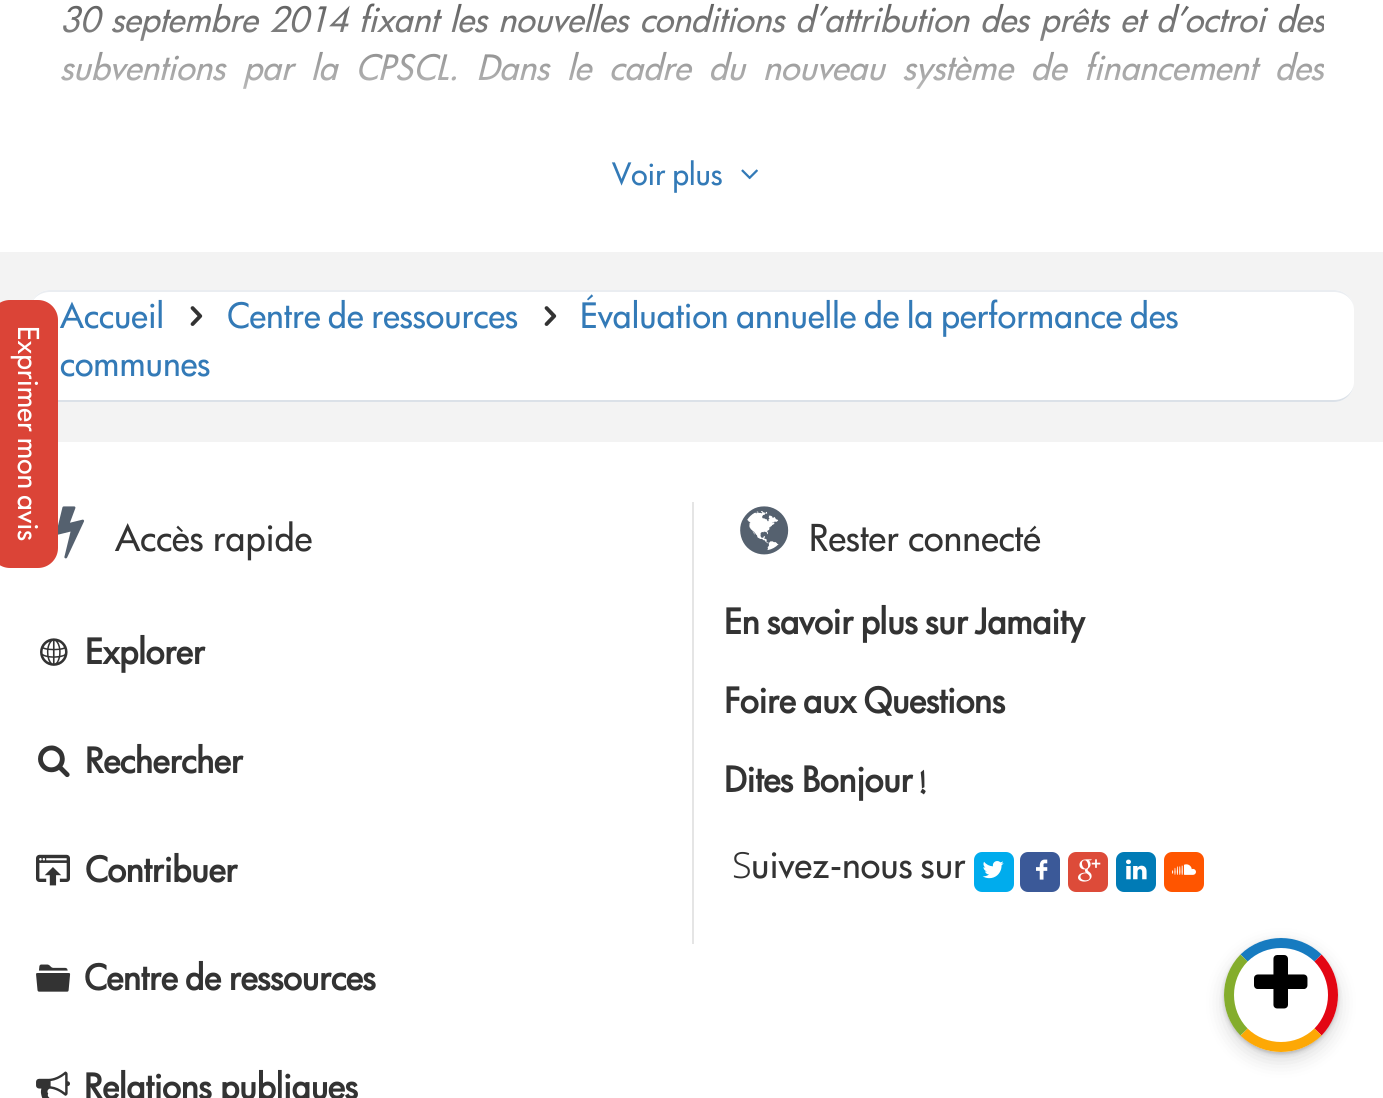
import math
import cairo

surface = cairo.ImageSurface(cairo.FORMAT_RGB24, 1383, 1098)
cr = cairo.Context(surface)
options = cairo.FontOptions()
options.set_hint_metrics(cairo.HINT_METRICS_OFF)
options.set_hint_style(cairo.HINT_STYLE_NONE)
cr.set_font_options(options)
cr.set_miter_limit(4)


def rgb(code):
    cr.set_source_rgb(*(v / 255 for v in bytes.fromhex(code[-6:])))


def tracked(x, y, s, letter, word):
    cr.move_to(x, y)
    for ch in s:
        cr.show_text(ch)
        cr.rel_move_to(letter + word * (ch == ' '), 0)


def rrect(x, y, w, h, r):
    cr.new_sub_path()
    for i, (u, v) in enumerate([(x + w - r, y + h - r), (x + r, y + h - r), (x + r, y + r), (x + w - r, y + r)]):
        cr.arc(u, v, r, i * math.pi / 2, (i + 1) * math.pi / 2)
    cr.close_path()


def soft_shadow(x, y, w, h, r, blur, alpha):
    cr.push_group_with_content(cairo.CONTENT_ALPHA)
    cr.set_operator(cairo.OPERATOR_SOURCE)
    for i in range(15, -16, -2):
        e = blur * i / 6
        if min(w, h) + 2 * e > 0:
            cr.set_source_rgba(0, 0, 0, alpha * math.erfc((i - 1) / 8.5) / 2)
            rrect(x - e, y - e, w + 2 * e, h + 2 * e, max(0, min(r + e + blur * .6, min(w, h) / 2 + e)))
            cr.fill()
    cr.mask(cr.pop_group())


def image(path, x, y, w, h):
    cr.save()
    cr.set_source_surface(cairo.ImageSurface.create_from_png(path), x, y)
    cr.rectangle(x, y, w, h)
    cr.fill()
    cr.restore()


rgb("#f3f3f3")
cr.paint()
rgb("#ffffff")
cr.rectangle(0, 0, 1383, 252)
cr.fill()
image("img/1.png", 741, 169, 17, 11)
rrect(30, 290, 1324, 112, 20)
cr.fill()
rgb("#eaedf1")
cr.new_path()
cr.move_to(50, 290)
cr.curve_to(39, 290, 30, 299, 30, 310)
cr.curve_to(30, 300, 39, 292, 50, 292)
cr.line_to(1334, 292)
cr.curve_to(1345, 292, 1354, 300, 1354, 310)
cr.curve_to(1354, 299, 1345, 290, 1334, 290)
cr.close_path()
cr.fill()
rgb("#dbe1e8")
cr.new_path()
cr.move_to(1334, 402)
cr.curve_to(1345, 402, 1354, 393, 1354, 382)
cr.curve_to(1354, 392, 1345, 400, 1334, 400)
cr.line_to(50, 400)
cr.curve_to(39, 400, 30, 392, 30, 382)
cr.curve_to(30, 393, 39, 402, 50, 402)
cr.close_path()
cr.fill()
image("img/2.png", 190, 306, 13, 20)
image("img/2.png", 544, 306, 13, 20)
rgb("#ffffff")
cr.rectangle(0, 442, 1383, 656)
cr.fill()
rgb("#db4437")
cr.new_path()
cr.move_to(58, 320)
cr.line_to(58, 548)
cr.curve_to(58, 559, 49, 568, 38, 568)
cr.line_to(10, 568)
cr.curve_to(-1, 568, -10, 559, -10, 548)
cr.line_to(-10, 320)
cr.curve_to(-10, 309, -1, 300, 10, 300)
cr.line_to(38, 300)
cr.curve_to(49, 300, 58, 309, 58, 320)
cr.close_path()
cr.fill()
image("img/3.png", 58, 506, 27, 53)
image("img/4.png", 40, 638, 28, 28)
image("img/5.png", 38, 745, 32, 33)
image("img/6.png", 36, 854, 34, 32)
image("img/7.png", 36, 964, 35, 28)
image("img/8.png", 36, 1071, 34, 27)
rgb("#e5e5e5")
cr.rectangle(692, 502, 2, 442)
cr.fill()
image("img/9.png", 740, 506, 49, 49)
rgb("#00aced")
rrect(974, 852, 40, 40, 8)
cr.fill()
image("img/10.png", 982, 861, 22, 18)
rgb("#3b5998")
rrect(1020, 852, 40, 40, 8)
cr.fill()
image("img/11.png", 1036, 859, 12, 21)
rgb("#dd4b39")
rrect(1068, 852, 40, 40, 8)
cr.fill()
image("img/12.png", 1078, 859, 23, 23)
rgb("#007bb6")
rrect(1116, 852, 40, 40, 8)
cr.fill()
image("img/13.png", 1126, 859, 21, 21)
rgb("#ff5500")
rrect(1164, 852, 40, 40, 8)
cr.fill()
image("img/14.png", 1172, 864, 24, 11)
rgb("#000000")
soft_shadow(1224, 946, 114, 114, 57, 10, 0.15)
soft_shadow(1224, 940, 114, 114, 57, 2, 0.2)
rgb("#ffffff")
cr.arc(1281, 995, 57, 0, 2 * math.pi)
cr.fill()
cr.new_path()
cr.move_to(1244, 958)
cr.curve_to(1264.5, 938, 1297.5, 938, 1318, 958)
rgb("#177bc0")
cr.set_line_width(10)
cr.stroke()
cr.new_path()
cr.move_to(1318, 958)
cr.curve_to(1338, 978.5, 1338, 1011.5, 1318, 1032)
rgb("#e30613")
cr.stroke()
cr.new_path()
cr.move_to(1318, 1032)
cr.curve_to(1297.5, 1052, 1264.5, 1052, 1244, 1032)
rgb("#fda805")
cr.stroke()
cr.new_path()
cr.move_to(1244, 1032)
cr.curve_to(1224, 1011.5, 1224, 978.5, 1244, 958)
rgb("#84ad2c")
cr.stroke()
image("img/15.png", 1254, 955, 54, 54)
cr.save()
cr.rectangle(60, 0, 1264, 158)
cr.clip()
cr.select_font_face("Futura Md", cairo.FONT_SLANT_ITALIC)
cr.set_font_size(34)
rgb("#333333")
tracked(60, 32, "30 septembre 2014 fixant les nouvelles conditions d’attribution des prêts et d’octroi des", 0, 1.5)
tracked(60, 80, "subventions par la CPSCL. Dans le cadre du nouveau système de financement des", 0, 8.25)
cr.restore()
gradient = cairo.LinearGradient(692, -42, 692, 158)
gradient.add_color_stop_rgba(0, 1, 1, 1, 0)
gradient.add_color_stop_rgba(1, 1, 1, 1, 1)
cr.set_source(gradient)
cr.rectangle(61, 3, 1263, 86)
cr.fill()
cr.select_font_face("Futura Md")
cr.set_font_size(30)
rgb("#337ab7")
tracked(612, 185, "Voir plus", 0, -2)
cr.set_font_size(34)
cr.move_to(60, 328)
cr.show_text("Accueil")
tracked(227, 328, "Centre de ressources", 0, -2.25)
tracked(580, 328, "Évaluation annuelle de la performance des", 0, -2.25)
cr.move_to(60, 376)
cr.show_text("communes")
cr.set_font_size(28)
rgb("#ffffff")
cr.save()
cr.translate(18, 326)
cr.rotate(90 * math.pi / 180)
tracked(0, 0, "Exprimer mon avis", 0, -2)
cr.restore()
cr.set_font_size(36)
rgb("#333333")
tracked(115, 551, "Accès rapide", 0, -1)
cr.select_font_face("Futura Md", cairo.FONT_SLANT_NORMAL, cairo.FONT_WEIGHT_BOLD)
cr.set_font_size(34)
for x, y, s in [
    (85, 664, "Explorer"),
    (85, 773, "Rechercher"),
    (85, 882, "Contribuer"),
]:
    cr.move_to(x, y)
    cr.show_text(s)
tracked(84, 990, "Centre de ressources", 0, -2)
tracked(84, 1099, "Relations publiques", 0, -1)
cr.select_font_face("Futura Md")
cr.set_font_size(36)
tracked(809, 551, "Rester connecté", 0, -1)
cr.select_font_face("Futura Md", cairo.FONT_SLANT_NORMAL, cairo.FONT_WEIGHT_BOLD)
cr.set_font_size(34)
tracked(724, 634, "En savoir plus sur Jamaity", 0, -2.25)
tracked(724, 713, "Foire aux Questions", 0, -2.25)
tracked(724, 792, "Dites Bonjour", 0, -1)
cr.select_font_face("Noto Naskh Arabic", cairo.FONT_SLANT_NORMAL, cairo.FONT_WEIGHT_BOLD)
cr.move_to(919, 792)
cr.show_text("!")
cr.select_font_face("Noto Sans Light")
cr.set_font_size(36)
cr.move_to(732, 878)
cr.show_text("S")
cr.select_font_face("Futura Md")
tracked(751, 878, "uivez-nous sur", 0, -2)
surface.write_to_png("page.png")
